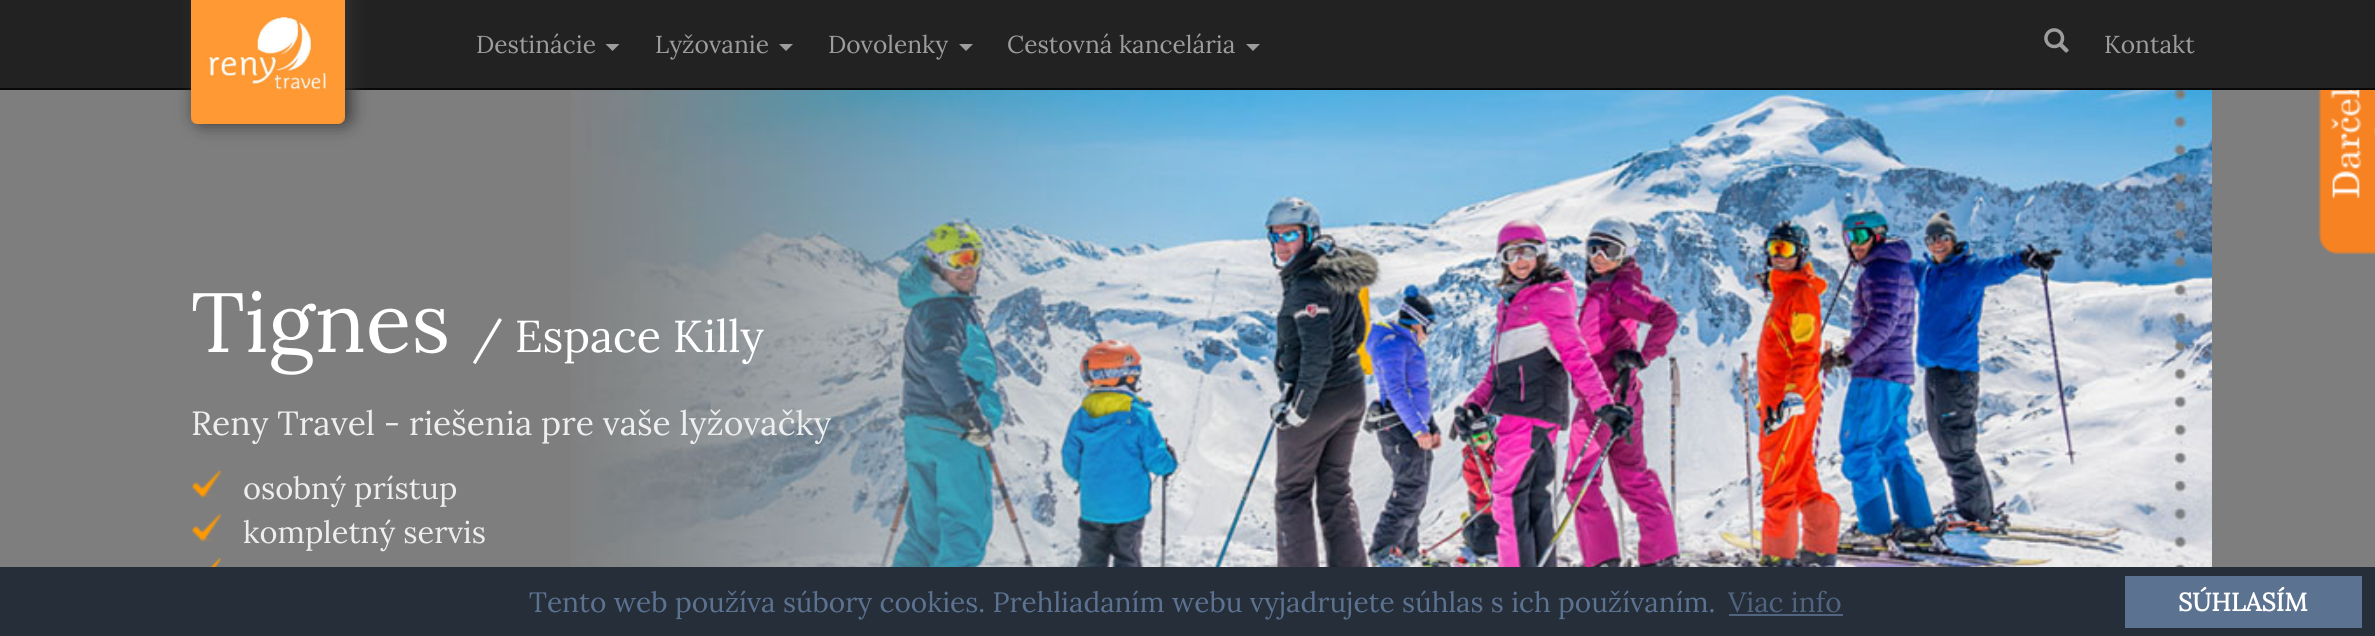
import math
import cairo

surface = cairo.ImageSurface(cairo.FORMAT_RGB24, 2375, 636)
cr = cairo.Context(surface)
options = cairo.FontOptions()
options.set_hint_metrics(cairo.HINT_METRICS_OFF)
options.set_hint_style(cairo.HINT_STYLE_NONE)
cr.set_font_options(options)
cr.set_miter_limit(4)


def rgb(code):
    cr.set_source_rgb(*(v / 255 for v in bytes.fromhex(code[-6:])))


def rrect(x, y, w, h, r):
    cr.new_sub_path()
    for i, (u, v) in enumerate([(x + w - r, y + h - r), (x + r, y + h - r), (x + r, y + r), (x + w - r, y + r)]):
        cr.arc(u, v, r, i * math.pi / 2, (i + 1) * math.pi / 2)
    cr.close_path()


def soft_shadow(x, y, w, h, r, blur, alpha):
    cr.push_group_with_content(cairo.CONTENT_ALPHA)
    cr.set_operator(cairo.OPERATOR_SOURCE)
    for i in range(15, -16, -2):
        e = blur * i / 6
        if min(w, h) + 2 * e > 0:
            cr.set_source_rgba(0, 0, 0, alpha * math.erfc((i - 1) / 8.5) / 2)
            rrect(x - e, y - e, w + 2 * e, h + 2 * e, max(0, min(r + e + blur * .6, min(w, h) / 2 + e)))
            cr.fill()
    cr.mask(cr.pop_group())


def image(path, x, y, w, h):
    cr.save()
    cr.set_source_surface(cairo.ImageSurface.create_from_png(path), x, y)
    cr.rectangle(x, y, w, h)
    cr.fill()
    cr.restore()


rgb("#7e7e7e")
cr.paint()
rgb("#222222")
cr.rectangle(0, 0, 2375, 88)
cr.fill()
rgb("#080808")
cr.rectangle(0, 88, 2375, 2)
cr.fill()
rgb("#333333")
soft_shadow(196, -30, 154, 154, 7, 9, 1)
image("img/1.png", 191, 0, 154, 124)
rgb("#9d9d9d")
cr.new_path()
cr.move_to(605.5, 44)
cr.line_to(619.5, 44)
cr.line_to(612.5, 51)
cr.close_path()
cr.fill()
cr.new_path()
cr.move_to(779, 44)
cr.line_to(793, 44)
cr.line_to(786, 51)
cr.close_path()
cr.fill()
cr.new_path()
cr.move_to(959, 44)
cr.line_to(973, 44)
cr.line_to(966, 51)
cr.close_path()
cr.fill()
cr.new_path()
cr.move_to(1246, 44)
cr.line_to(1260, 44)
cr.line_to(1253, 51)
cr.close_path()
cr.fill()
image("img/2.png", 2044, 28, 25, 25)
image("img/3.png", 2318, 90, 57, 164)
image("img/4.png", 571, 90, 1641, 477)
image("img/5.png", 192, 470, 29, 28)
image("img/6.png", 192, 514, 29, 28)
image("img/7.png", 209, 557, 12, 10)
for x, y, w, h, color in [
    (0, 567, 2375, 69, "#252e39"),
    (1729, 614, 114, 2, "#51647f"),
    (2125, 576, 237, 52, "#5c7291"),
]:
    rgb(color)
    cr.rectangle(x, y, w, h)
    cr.fill()
cr.select_font_face("Lora")
cr.set_font_size(24.5)
rgb("#9d9d9d")
for x, y, s in [
    (476, 53, "Destinácie"),
    (655, 53, "Lyžovanie"),
    (828, 53, "Dovolenky"),
    (1007, 53, "Cestovná kancelária"),
    (2104, 53, "Kontakt"),
]:
    cr.move_to(x, y)
    cr.show_text(s)
cr.set_font_size(84)
rgb("#ffffff")
cr.move_to(191, 352)
cr.show_text("Tignes")
cr.set_font_size(44.75)
cr.move_to(472, 352)
cr.show_text("/ Espace Killy")
cr.set_font_size(33.6)
rgb("#eeeeee")
cr.move_to(191, 435)
cr.show_text("Reny Travel - riešenia pre vaše lyžovačky")
cr.set_font_size(30.75)
cr.move_to(243, 499)
cr.show_text("osobný prístup")
cr.move_to(243, 543)
cr.show_text("kompletný servis")
cr.set_font_size(28)
rgb("#5c7291")
cr.move_to(529, 612)
cr.show_text("Tento web používa súbory cookies. Prehliadaním webu vyjadrujete súhlas s ich používaním.")
rgb("#51647f")
cr.move_to(1728, 612)
cr.show_text("Viac info")
cr.select_font_face("Lora", cairo.FONT_SLANT_NORMAL, cairo.FONT_WEIGHT_BOLD)
cr.set_font_size(25.25)
rgb("#ffffff")
cr.move_to(2178, 611)
cr.show_text("SÚHLASÍM")
surface.write_to_png("page.png")
